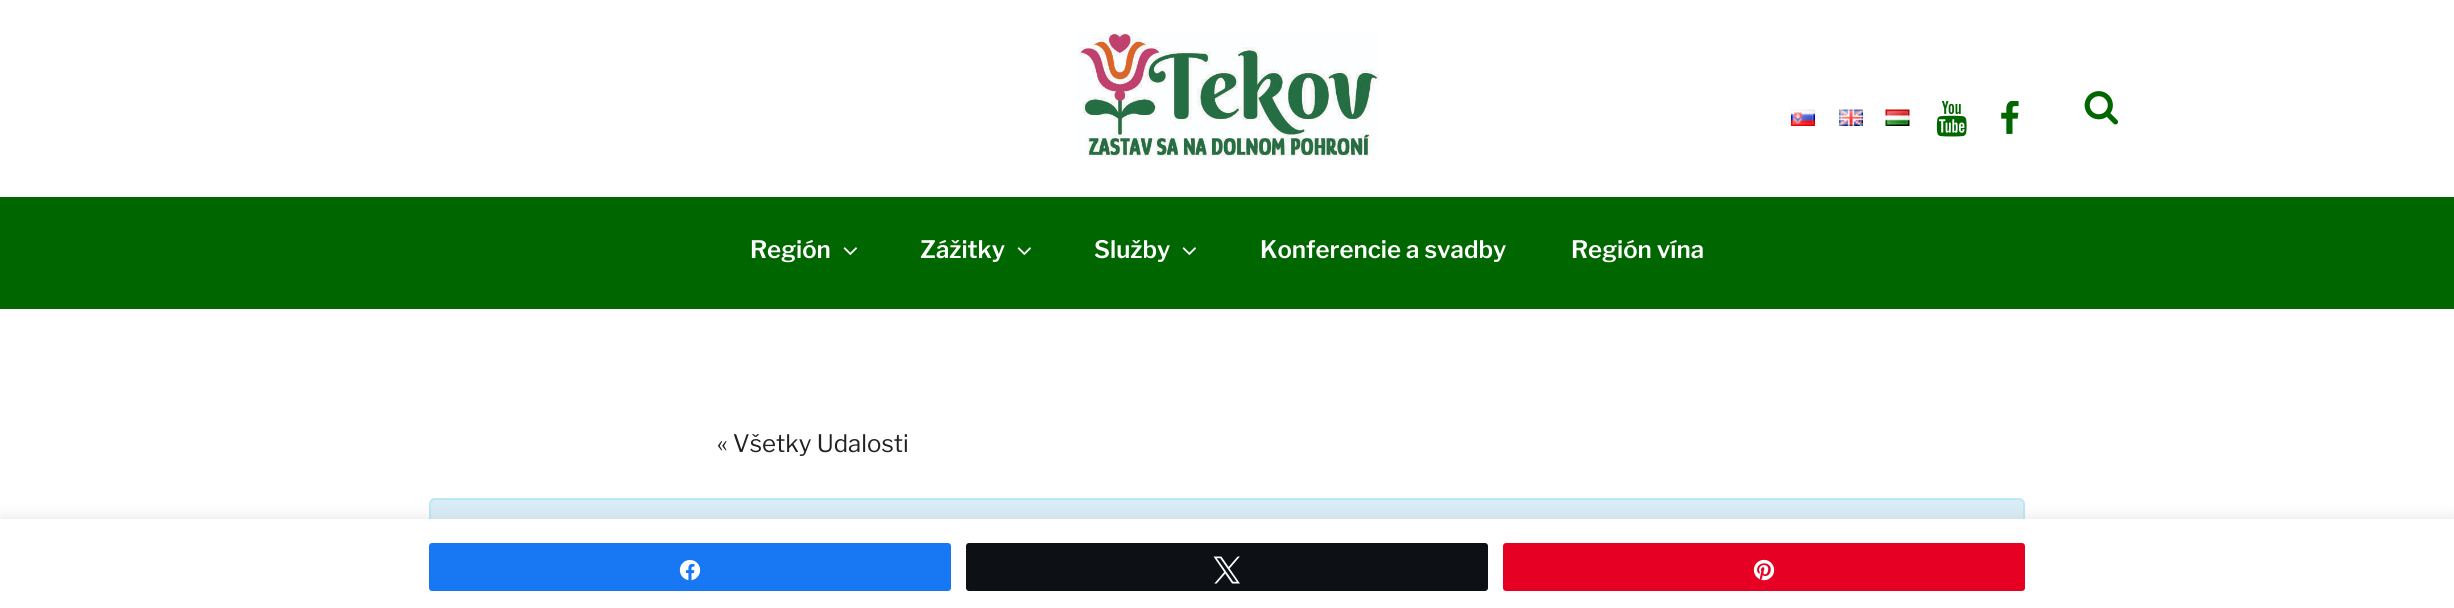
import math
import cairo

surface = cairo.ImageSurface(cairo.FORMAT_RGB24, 2454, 608)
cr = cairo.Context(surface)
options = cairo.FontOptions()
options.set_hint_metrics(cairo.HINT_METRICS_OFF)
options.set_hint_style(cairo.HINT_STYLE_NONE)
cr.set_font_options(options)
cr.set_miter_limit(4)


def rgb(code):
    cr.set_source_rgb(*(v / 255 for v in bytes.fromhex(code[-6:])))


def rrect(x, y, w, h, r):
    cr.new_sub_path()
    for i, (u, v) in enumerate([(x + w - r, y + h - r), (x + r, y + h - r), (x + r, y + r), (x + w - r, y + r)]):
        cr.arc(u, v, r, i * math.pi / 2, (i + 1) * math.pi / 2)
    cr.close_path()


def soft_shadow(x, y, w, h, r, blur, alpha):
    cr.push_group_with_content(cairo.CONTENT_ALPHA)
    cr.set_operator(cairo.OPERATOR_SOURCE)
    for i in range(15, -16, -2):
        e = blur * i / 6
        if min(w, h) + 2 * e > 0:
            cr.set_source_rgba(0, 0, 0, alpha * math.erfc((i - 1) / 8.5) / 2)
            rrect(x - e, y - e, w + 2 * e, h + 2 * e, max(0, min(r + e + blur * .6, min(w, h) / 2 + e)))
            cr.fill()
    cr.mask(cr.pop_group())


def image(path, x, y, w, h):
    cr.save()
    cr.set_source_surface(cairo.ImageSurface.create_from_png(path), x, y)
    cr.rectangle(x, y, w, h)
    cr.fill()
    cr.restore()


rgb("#ffffff")
cr.paint()
image("img/1.png", 1078, 33, 301, 124)
image("img/2.png", 1791, 109, 24, 17)
image("img/3.png", 1839, 109, 24, 17)
image("img/4.png", 1885, 109, 25, 17)
image("img/5.png", 1936, 101, 31, 36)
image("img/6.png", 2001, 101, 18, 33)
image("img/7.png", 2084, 91, 34, 34)
rgb("#006600")
cr.rectangle(0, 197, 2454, 112)
cr.fill()
image("img/8.png", 843, 247, 14, 8)
image("img/8.png", 1017, 247, 14, 8)
image("img/8.png", 1182, 247, 14, 8)
rgb("#d9edf7")
rrect(430, 499, 1594, 61, 5)
cr.fill_preserve()
rgb("#bce8f1")
cr.stroke()
rgb("#acabab")
soft_shadow(0, 518, 2454, 90, 0, 7.5, 0.3)
rgb("#ffffff")
cr.rectangle(0, 519, 2454, 89)
cr.fill()
rgb("#1877f2")
rrect(430, 544, 520, 46, 2)
cr.fill_preserve()
cr.stroke()
image("img/9.png", 679, 560, 22, 21)
rgb("#0d1014")
rrect(967, 544, 520, 46, 2)
cr.fill_preserve()
cr.stroke()
image("img/10.png", 1213, 556, 27, 28)
rgb("#e60023")
rrect(1504, 544, 520, 46, 2)
cr.fill_preserve()
cr.stroke()
image("img/11.png", 1753, 559, 22, 22)
cr.select_font_face("Libre Franklin SemiBold")
cr.set_font_size(24)
rgb("#ffffff")
for x, y, s in [
    (750, 258, "Región"),
    (920, 258, "Zážitky"),
    (1094, 258, "Služby"),
    (1260, 258, "Konferencie a svadby"),
    (1571, 258, "Región vína"),
]:
    cr.move_to(x, y)
    cr.show_text(s)
cr.select_font_face("Libre Franklin")
rgb("#222222")
cr.move_to(717, 452)
cr.show_text("« Všetky Udalosti")
surface.write_to_png("page.png")
